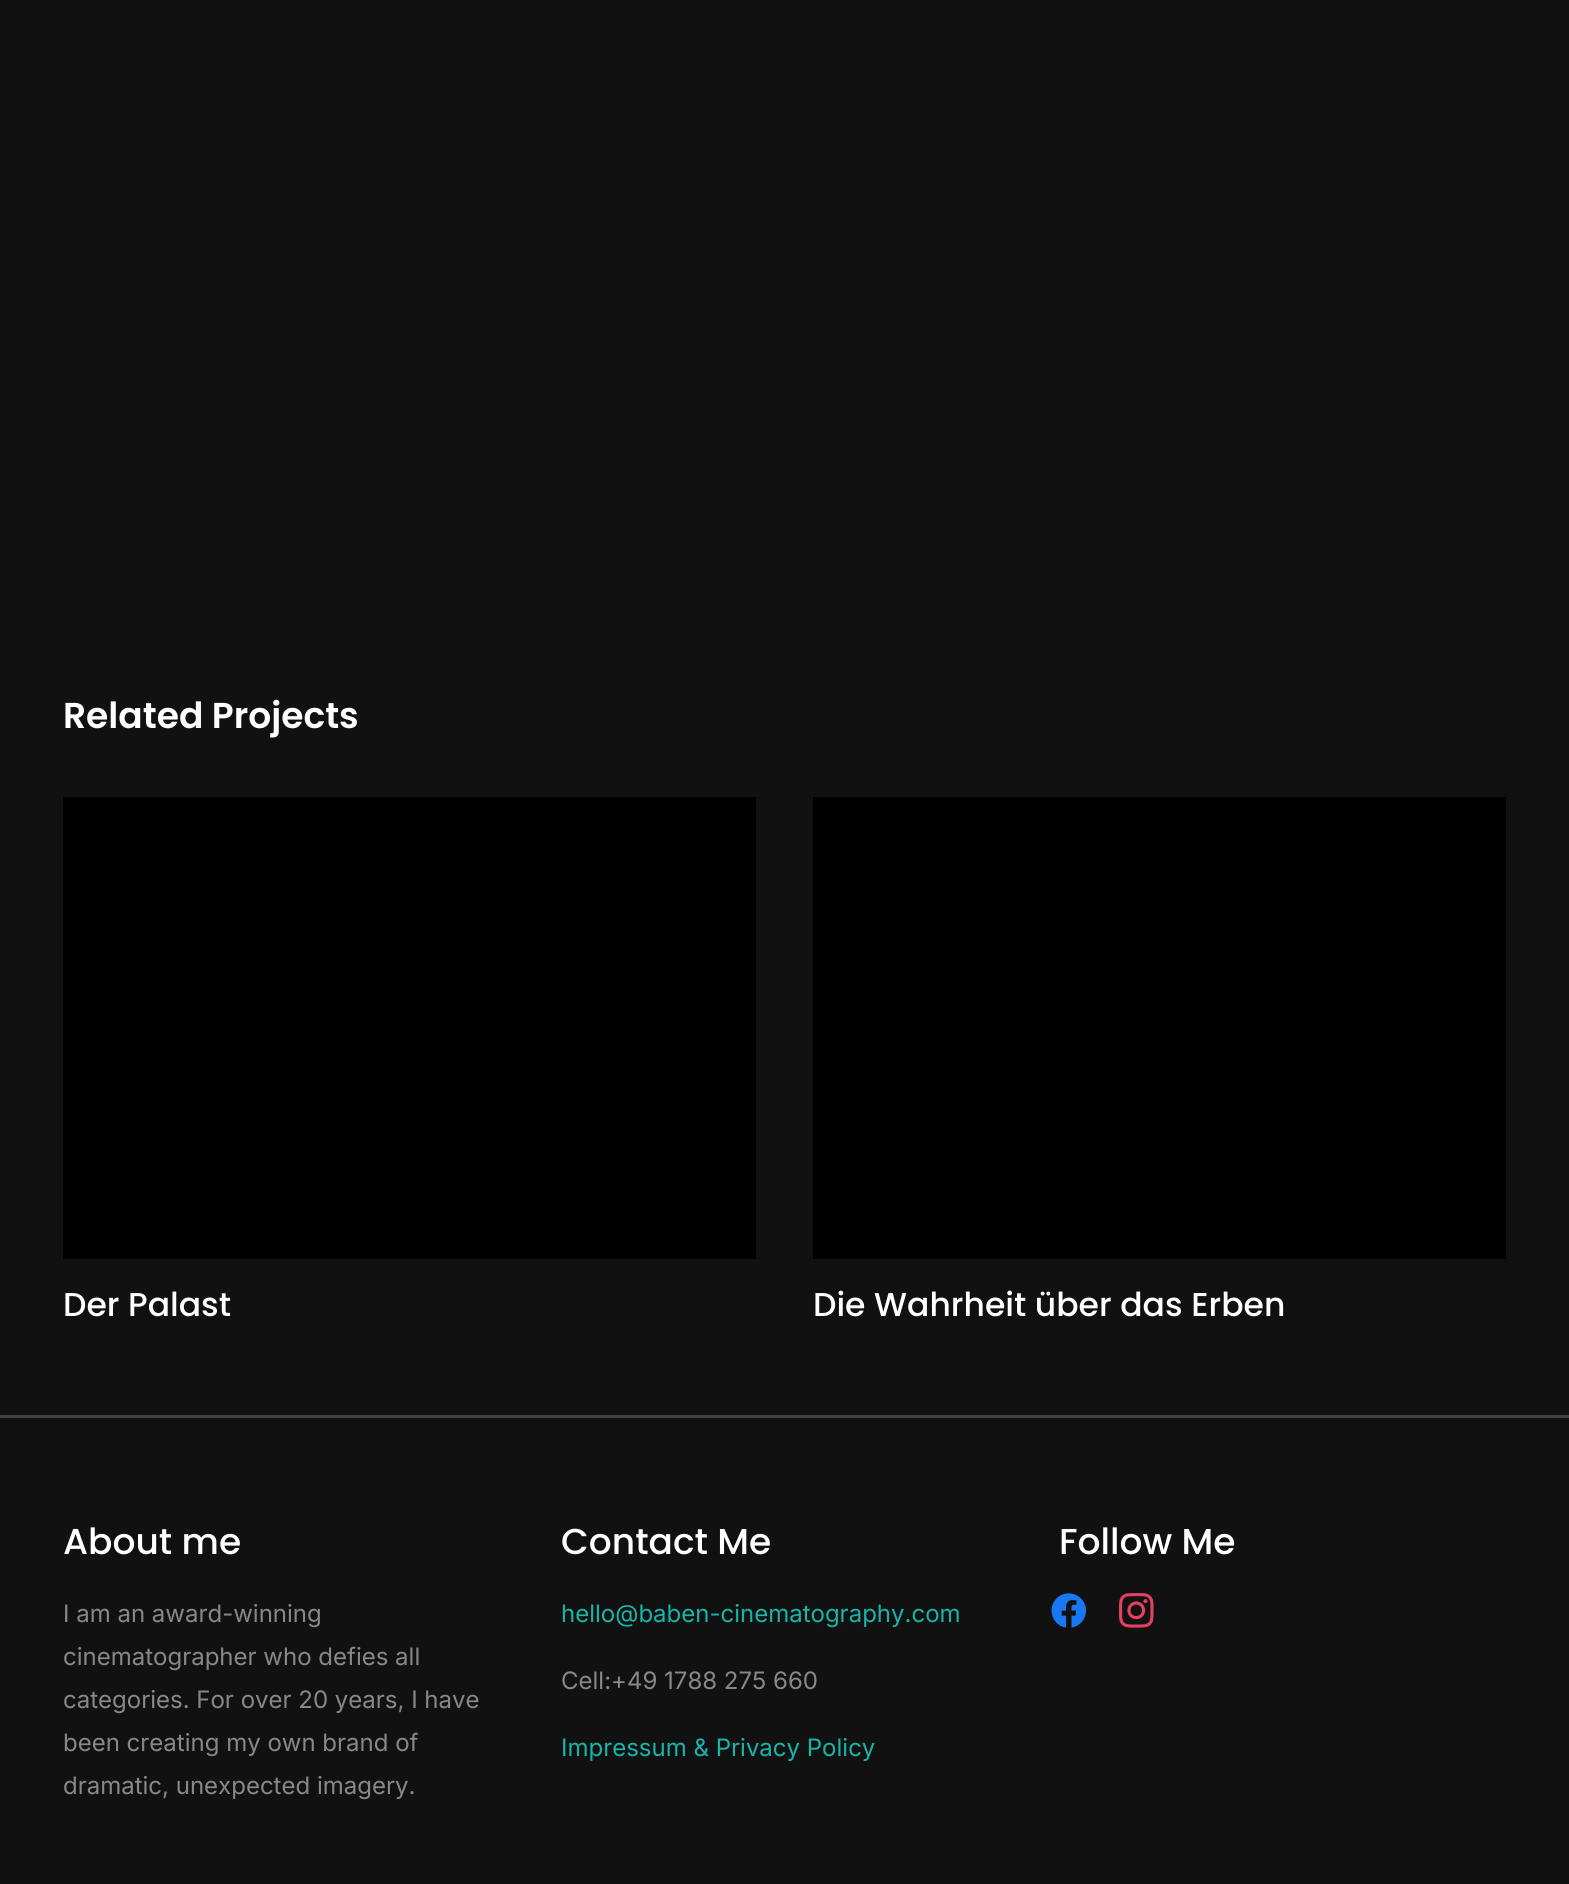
import math
import cairo

surface = cairo.ImageSurface(cairo.FORMAT_RGB24, 1569, 1884)
cr = cairo.Context(surface)
options = cairo.FontOptions()
options.set_hint_metrics(cairo.HINT_METRICS_OFF)
options.set_hint_style(cairo.HINT_STYLE_NONE)
cr.set_font_options(options)
cr.set_miter_limit(4)


def rgb(code):
    cr.set_source_rgb(*(v / 255 for v in bytes.fromhex(code[-6:])))


def image(path, x, y, w, h):
    cr.save()
    cr.set_source_surface(cairo.ImageSurface.create_from_png(path), x, y)
    cr.rectangle(x, y, w, h)
    cr.fill()
    cr.restore()


rgb("#111111")
cr.paint()
for x, y, w, h, color in [
    (63, 797, 693, 462, "#000000"),
    (813, 797, 693, 462, "#000000"),
    (0, 1415, 1569, 3, "#414141"),
]:
    rgb(color)
    cr.rectangle(x, y, w, h)
    cr.fill()
image("img/1.png", 1051, 1593, 35, 35)
image("img/2.png", 1119, 1593, 35, 35)
cr.select_font_face("Poppins SemiBold")
cr.set_font_size(36)
rgb("#ffffff")
cr.move_to(63, 728)
cr.show_text("Related Projects")
cr.select_font_face("Poppins Medium")
cr.set_font_size(33)
cr.move_to(63, 1316)
cr.show_text("Der Palast")
cr.move_to(813, 1316)
cr.show_text("Die Wahrheit über das Erben")
cr.set_font_size(36)
cr.move_to(63, 1554)
cr.show_text("About me")
cr.select_font_face("Inter")
cr.set_font_size(24)
rgb("#888888")
for x, y, s in [
    (63, 1622, "I am an award-winning"),
    (63, 1665, "cinematographer who defies all"),
    (63, 1708, "categories. For over 20 years, I have"),
    (63, 1751, "been creating my own brand of"),
    (63, 1794, "dramatic, unexpected imagery."),
]:
    cr.move_to(x, y)
    cr.show_text(s)
cr.select_font_face("Poppins Medium")
cr.set_font_size(36)
rgb("#ffffff")
cr.move_to(561, 1554)
cr.show_text("Contact Me")
cr.select_font_face("Inter")
cr.set_font_size(24)
rgb("#18b4aa")
cr.move_to(561, 1622)
cr.show_text("hello@baben-cinematography.com")
rgb("#888888")
cr.move_to(561, 1689)
cr.show_text("Cell:+49 1788 275 660")
rgb("#18b4aa")
cr.move_to(561, 1756)
cr.show_text("Impressum & Privacy Policy")
cr.select_font_face("Poppins Medium")
cr.set_font_size(36)
rgb("#ffffff")
cr.move_to(1059, 1554)
cr.show_text("Follow Me")
surface.write_to_png("page.png")
